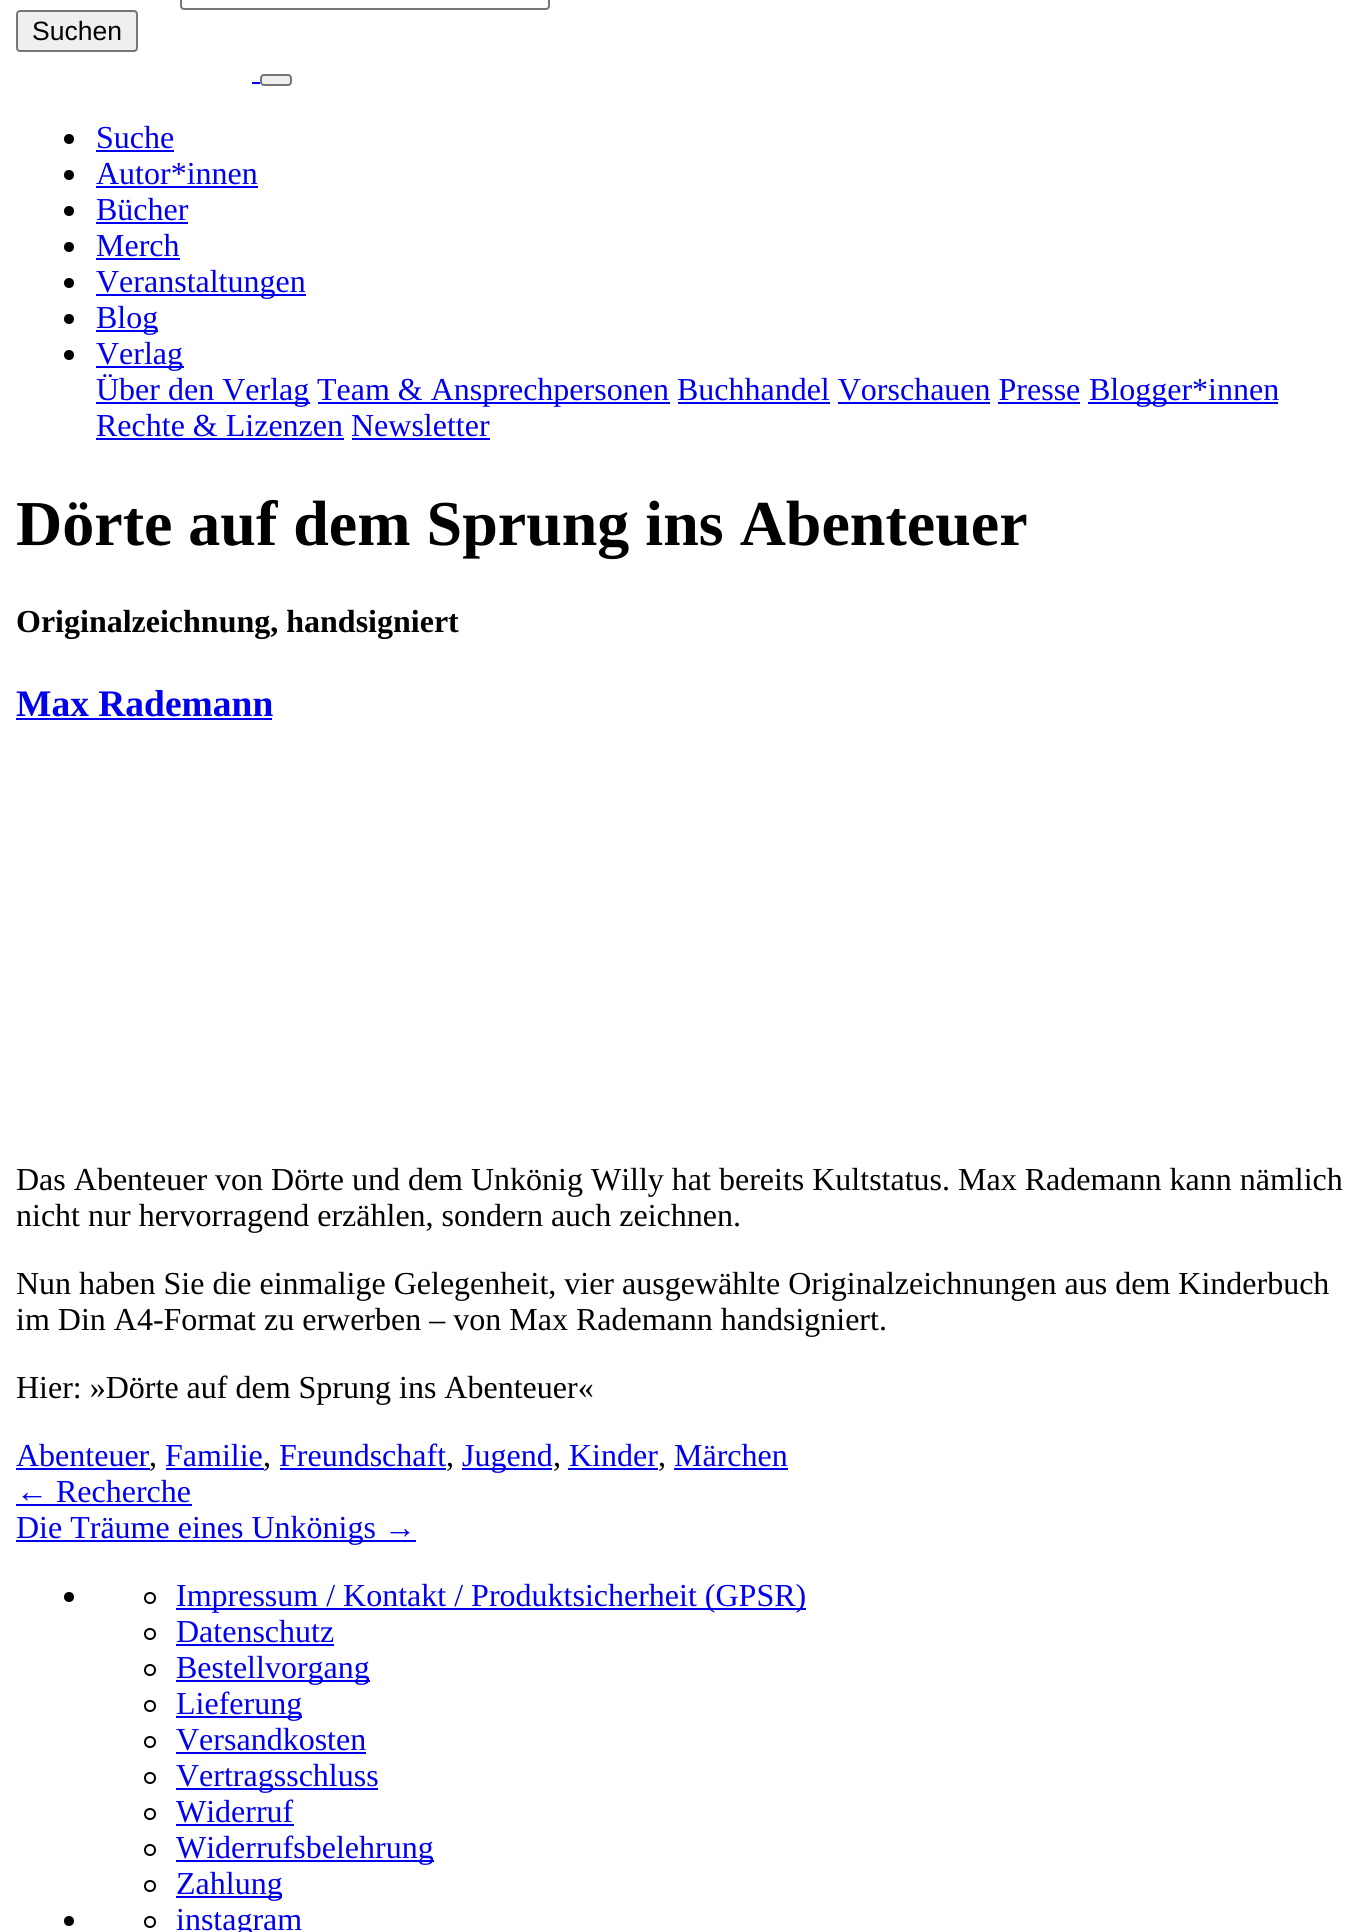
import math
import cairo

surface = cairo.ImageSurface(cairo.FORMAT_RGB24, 1360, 1932)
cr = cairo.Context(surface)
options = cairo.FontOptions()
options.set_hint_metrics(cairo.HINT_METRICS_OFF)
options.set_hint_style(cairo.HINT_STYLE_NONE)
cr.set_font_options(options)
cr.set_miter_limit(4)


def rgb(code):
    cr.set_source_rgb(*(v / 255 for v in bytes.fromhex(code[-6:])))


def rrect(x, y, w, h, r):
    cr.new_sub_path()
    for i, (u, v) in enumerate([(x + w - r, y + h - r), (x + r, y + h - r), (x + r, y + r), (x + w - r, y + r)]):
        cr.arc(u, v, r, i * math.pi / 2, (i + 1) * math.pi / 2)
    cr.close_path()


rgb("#ffffff")
cr.paint()
rrect(181, -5, 368, 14, 3)
rgb("#767676")
cr.stroke()
rgb("#efefef")
rrect(17, 11, 120, 40, 3)
cr.fill_preserve()
rgb("#767676")
cr.stroke()
rgb("#0000ee")
cr.rectangle(252, 82, 8, 2)
cr.fill()
rgb("#efefef")
rrect(261, 75, 30, 10, 3)
cr.fill_preserve()
rgb("#767676")
cr.stroke()
rgb("#000000")
cr.arc(69, 139, 5, 0, 2 * math.pi)
cr.fill()
rgb("#0000ee")
cr.rectangle(96, 150, 78, 2)
cr.fill()
rgb("#000000")
cr.arc(69, 175, 5, 0, 2 * math.pi)
cr.fill()
rgb("#0000ee")
cr.rectangle(96, 186, 162, 2)
cr.fill()
rgb("#000000")
cr.arc(69, 211, 5, 0, 2 * math.pi)
cr.fill()
rgb("#0000ee")
cr.rectangle(96, 222, 92, 2)
cr.fill()
rgb("#000000")
cr.arc(69, 247, 5, 0, 2 * math.pi)
cr.fill()
rgb("#0000ee")
cr.rectangle(96, 258, 84, 2)
cr.fill()
rgb("#000000")
cr.arc(69, 283, 5, 0, 2 * math.pi)
cr.fill()
rgb("#0000ee")
cr.rectangle(96, 294, 210, 2)
cr.fill()
rgb("#000000")
cr.arc(69, 319, 5, 0, 2 * math.pi)
cr.fill()
rgb("#0000ee")
cr.rectangle(96, 330, 62, 2)
cr.fill()
rgb("#000000")
cr.arc(69, 355, 5, 0, 2 * math.pi)
cr.fill()
for x, y, w, h, color in [
    (96, 366, 88, 2, "#0000ee"),
    (96, 402, 214, 2, "#0000ee"),
    (318, 402, 352, 2, "#0000ee"),
    (1088, 402, 190, 2, "#0000ee"),
    (678, 402, 152, 2, "#0000ee"),
    (838, 402, 152, 2, "#0000ee"),
    (998, 402, 82, 2, "#0000ee"),
    (96, 438, 248, 2, "#0000ee"),
    (352, 438, 138, 2, "#0000ee"),
    (16, 718, 256, 2, "#0000ee"),
    (16, 1468, 134, 2, "#0000ee"),
    (166, 1468, 98, 2, "#0000ee"),
    (280, 1468, 166, 2, "#0000ee"),
    (462, 1468, 90, 2, "#0000ee"),
    (568, 1468, 90, 2, "#0000ee"),
    (674, 1468, 114, 2, "#0000ee"),
    (16, 1504, 176, 2, "#0000ee"),
    (16, 1540, 400, 2, "#0000ee"),
]:
    rgb(color)
    cr.rectangle(x, y, w, h)
    cr.fill()
rgb("#000000")
cr.arc(69, 1597, 5, 0, 2 * math.pi)
cr.fill()
cr.arc(150, 1598, 5, 0, 2 * math.pi)
cr.stroke()
rgb("#0000ee")
cr.rectangle(176, 1608, 630, 2)
cr.fill()
cr.arc(150, 1634, 5, 0, 2 * math.pi)
rgb("#000000")
cr.stroke()
rgb("#0000ee")
cr.rectangle(176, 1644, 158, 2)
cr.fill()
cr.arc(150, 1670, 5, 0, 2 * math.pi)
rgb("#000000")
cr.stroke()
rgb("#0000ee")
cr.rectangle(176, 1680, 194, 2)
cr.fill()
cr.arc(150, 1706, 5, 0, 2 * math.pi)
rgb("#000000")
cr.stroke()
rgb("#0000ee")
cr.rectangle(176, 1716, 126, 2)
cr.fill()
cr.arc(150, 1742, 5, 0, 2 * math.pi)
rgb("#000000")
cr.stroke()
rgb("#0000ee")
cr.rectangle(176, 1752, 190, 2)
cr.fill()
cr.arc(150, 1778, 5, 0, 2 * math.pi)
rgb("#000000")
cr.stroke()
rgb("#0000ee")
cr.rectangle(176, 1788, 202, 2)
cr.fill()
cr.arc(150, 1814, 5, 0, 2 * math.pi)
rgb("#000000")
cr.stroke()
rgb("#0000ee")
cr.rectangle(176, 1824, 118, 2)
cr.fill()
cr.arc(150, 1850, 5, 0, 2 * math.pi)
rgb("#000000")
cr.stroke()
rgb("#0000ee")
cr.rectangle(176, 1860, 258, 2)
cr.fill()
cr.arc(150, 1886, 5, 0, 2 * math.pi)
rgb("#000000")
cr.stroke()
rgb("#0000ee")
cr.rectangle(176, 1896, 106, 2)
cr.fill()
rgb("#000000")
cr.arc(69, 1921, 5, 0, 2 * math.pi)
cr.fill()
cr.arc(150, 1922, 5, 0, 2 * math.pi)
cr.stroke()
cr.select_font_face("Liberation Sans")
cr.set_font_size(26.5)
cr.move_to(32, 40)
cr.show_text("Suchen")
cr.select_font_face("Liberation Serif")
cr.set_font_size(32)
rgb("#0000ee")
for x, y, s in [
    (96, 148, "Suche"),
    (96, 184, "Autor*innen"),
    (96, 220, "Bücher"),
    (96, 256, "Merch"),
    (96, 292, "Veranstaltungen"),
    (96, 328, "Blog"),
    (96, 364, "Verlag"),
    (96, 400, "Über den Verlag"),
    (317, 400, "Team & Ansprechpersonen Buchhandel Vorschauen Presse"),
    (1089, 400, "Blogger*innen"),
    (96, 436, "Rechte & Lizenzen Newsletter"),
]:
    cr.move_to(x, y)
    cr.show_text(s)
cr.select_font_face("Liberation Serif", cairo.FONT_SLANT_NORMAL, cairo.FONT_WEIGHT_BOLD)
cr.set_font_size(64)
rgb("#000000")
cr.move_to(16, 545)
cr.show_text("Dörte auf dem Sprung ins Abenteuer")
cr.set_font_size(32)
cr.move_to(16, 632)
cr.show_text("Originalzeichnung, handsigniert")
cr.set_font_size(37.5)
rgb("#0000ee")
cr.move_to(16, 716)
cr.show_text("Max Rademann")
cr.select_font_face("Liberation Serif")
cr.set_font_size(32)
rgb("#000000")
for x, y, s in [
    (16, 1190, "Das Abenteuer von Dörte und dem Unkönig Willy hat bereits Kultstatus. Max Rademann kann nämlich"),
    (16, 1226, "nicht nur hervorragend erzählen, sondern auch zeichnen."),
    (16, 1294, "Nun haben Sie die einmalige Gelegenheit, vier ausgewählte Originalzeichnungen aus dem Kinderbuch"),
    (16, 1330, "im Din A4-Format zu erwerben – von Max Rademann handsigniert."),
    (16, 1398, "Hier: »Dörte auf dem Sprung ins Abenteuer«"),
]:
    cr.move_to(x, y)
    cr.show_text(s)
rgb("#0000ee")
cr.move_to(16, 1466)
cr.show_text("Abenteuer")
rgb("#000000")
cr.move_to(149, 1466)
cr.show_text(",")
rgb("#0000ee")
cr.move_to(165, 1466)
cr.show_text("Familie")
rgb("#000000")
cr.move_to(263, 1466)
cr.show_text(",")
rgb("#0000ee")
cr.move_to(279, 1466)
cr.show_text("Freundschaft")
rgb("#000000")
cr.move_to(446, 1466)
cr.show_text(",")
rgb("#0000ee")
cr.move_to(462, 1466)
cr.show_text("Jugend")
rgb("#000000")
cr.move_to(553, 1466)
cr.show_text(",")
rgb("#0000ee")
cr.move_to(569, 1466)
cr.show_text("Kinder")
rgb("#000000")
cr.move_to(658, 1466)
cr.show_text(",")
rgb("#0000ee")
for x, y, s in [
    (674, 1466, "Märchen"),
    (16, 1502, "← Recherche"),
    (16, 1538, "Die Träume eines Unkönigs →"),
    (176, 1606, "Impressum / Kontakt / Produktsicherheit (GPSR)"),
    (176, 1642, "Datenschutz"),
    (176, 1678, "Bestellvorgang"),
    (176, 1714, "Lieferung"),
    (176, 1750, "Versandkosten"),
    (176, 1786, "Vertragsschluss"),
    (176, 1822, "Widerruf"),
    (176, 1858, "Widerrufsbelehrung"),
    (176, 1894, "Zahlung"),
    (176, 1930, "instagram"),
]:
    cr.move_to(x, y)
    cr.show_text(s)
surface.write_to_png("page.png")
